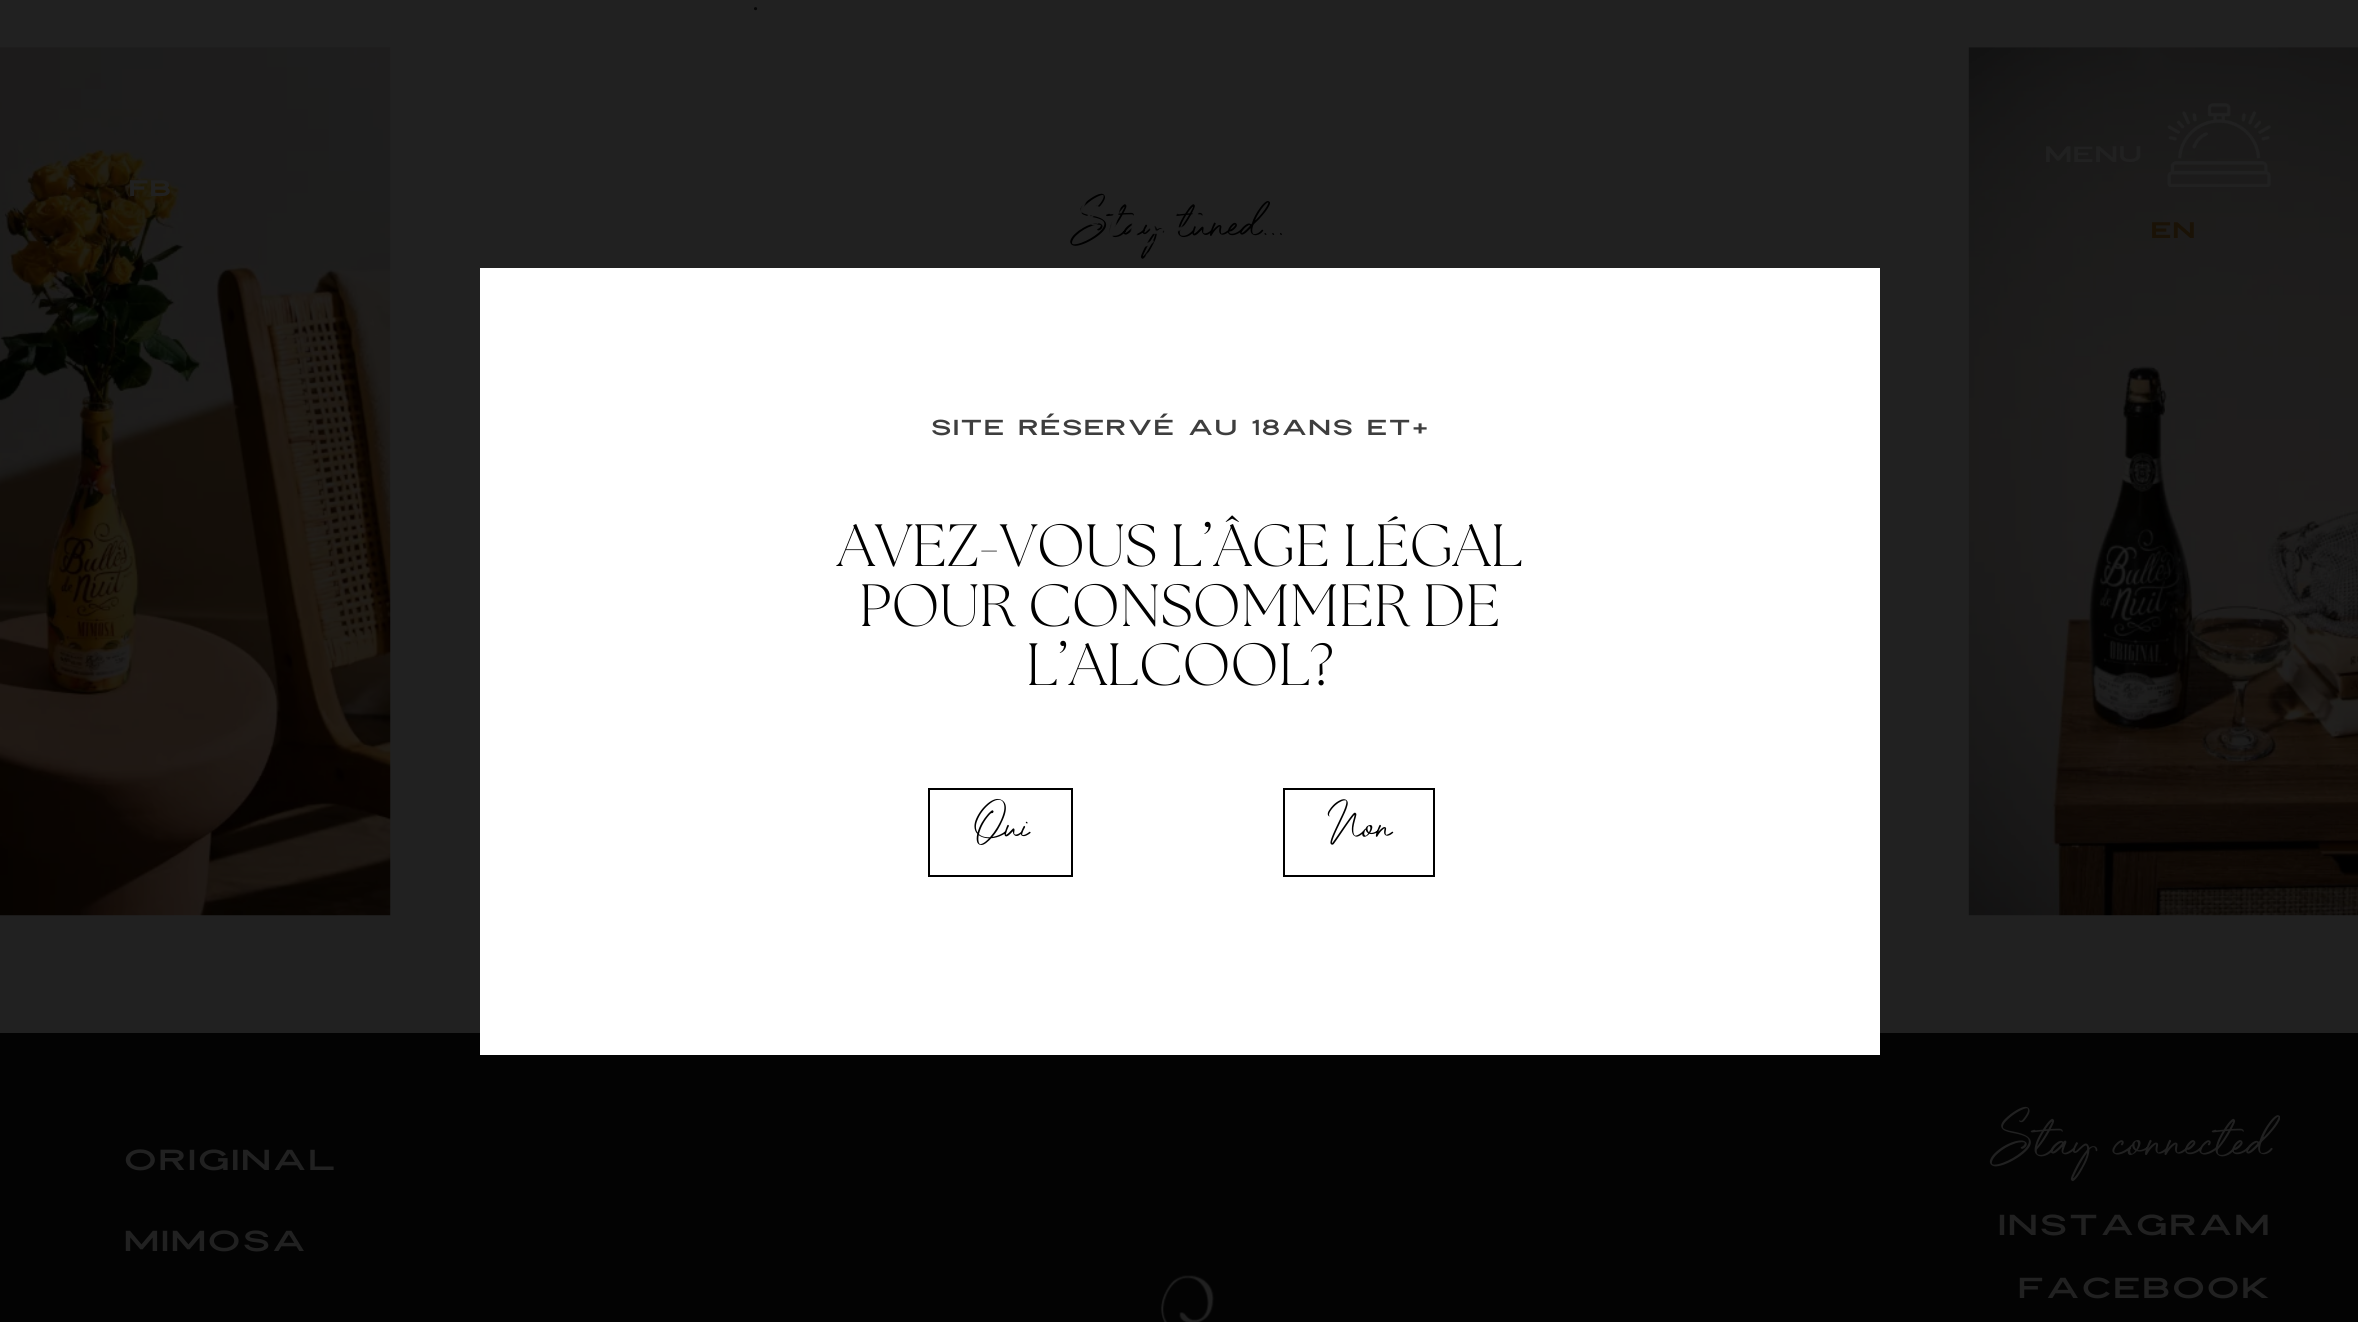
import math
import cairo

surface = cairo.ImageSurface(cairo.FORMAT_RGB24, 2358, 1322)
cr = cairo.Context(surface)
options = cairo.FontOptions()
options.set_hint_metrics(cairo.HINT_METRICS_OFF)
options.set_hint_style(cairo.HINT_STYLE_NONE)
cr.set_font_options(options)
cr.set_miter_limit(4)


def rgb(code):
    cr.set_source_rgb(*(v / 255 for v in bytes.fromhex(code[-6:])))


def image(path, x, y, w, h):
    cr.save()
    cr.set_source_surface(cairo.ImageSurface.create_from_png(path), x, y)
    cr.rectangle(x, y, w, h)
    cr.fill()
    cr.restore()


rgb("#212121")
cr.paint()
image("img/4.png", 1968, 47, 390, 869)
image("img/2.png", 2046, 103, 225, 85)
image("img/3.png", 0, 47, 391, 869)
rgb("#030303")
cr.rectangle(0, 1033, 2358, 289)
cr.fill()
image("img/5.png", 1160, 1275, 55, 47)
rgb("#ffffff")
cr.rectangle(480, 268, 1400, 787)
cr.fill()
cr.rectangle(929, 789, 143, 87)
rgb("#000000")
cr.stroke()
cr.rectangle(1284, 789, 150, 87)
cr.stroke()
cr.select_font_face("Roboto")
cr.set_font_size(28)
rgb("#070707")
cr.move_to(752, 10)
cr.show_text(".")
cr.select_font_face("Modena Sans", cairo.FONT_SLANT_NORMAL, cairo.FONT_WEIGHT_BOLD)
cr.set_font_size(21)
rgb("#212121")
cr.move_to(128, 196)
cr.show_text("FB")
rgb("#1a1206")
cr.move_to(2150, 238)
cr.show_text("EN")
cr.select_font_face("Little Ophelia")
cr.set_font_size(49)
rgb("#000000")
cr.move_to(1073, 235)
cr.show_text("Stay tuned...")
image("img/1.png", 1080, 201, 123, 67)
cr.select_font_face("Modena Sans")
cr.set_font_size(28)
rgb("#212121")
cr.move_to(123, 1170)
cr.show_text("Original")
cr.move_to(123, 1251)
cr.show_text("Mimosa")
cr.select_font_face("Little Ophelia")
cr.set_font_size(56)
cr.move_to(1993, 1154)
cr.show_text("Stay connected")
cr.select_font_face("Modena Sans")
cr.set_font_size(28)
cr.move_to(1997, 1235)
cr.show_text("Instagram")
cr.move_to(2017, 1298)
cr.show_text("Facebook")
cr.set_font_size(21)
rgb("#3e3e3e")
cr.move_to(930, 435)
cr.show_text("Site réservé au 18ans et+")
cr.select_font_face("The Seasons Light")
cr.set_font_size(59.5)
rgb("#000000")
for x, y, s in [
    (837, 566, "AVEZ-VOUS L’ÂGE LÉGAL"),
    (859, 626, "POUR CONSOMMER DE"),
    (1026, 685, "L’ALCOOL?"),
]:
    cr.move_to(x, y)
    cr.show_text(s)
cr.select_font_face("Little Ophelia")
cr.set_font_size(44)
cr.move_to(971, 836)
cr.show_text("Oui")
cr.move_to(1326, 836)
cr.show_text("Non")
surface.write_to_png("page.png")
